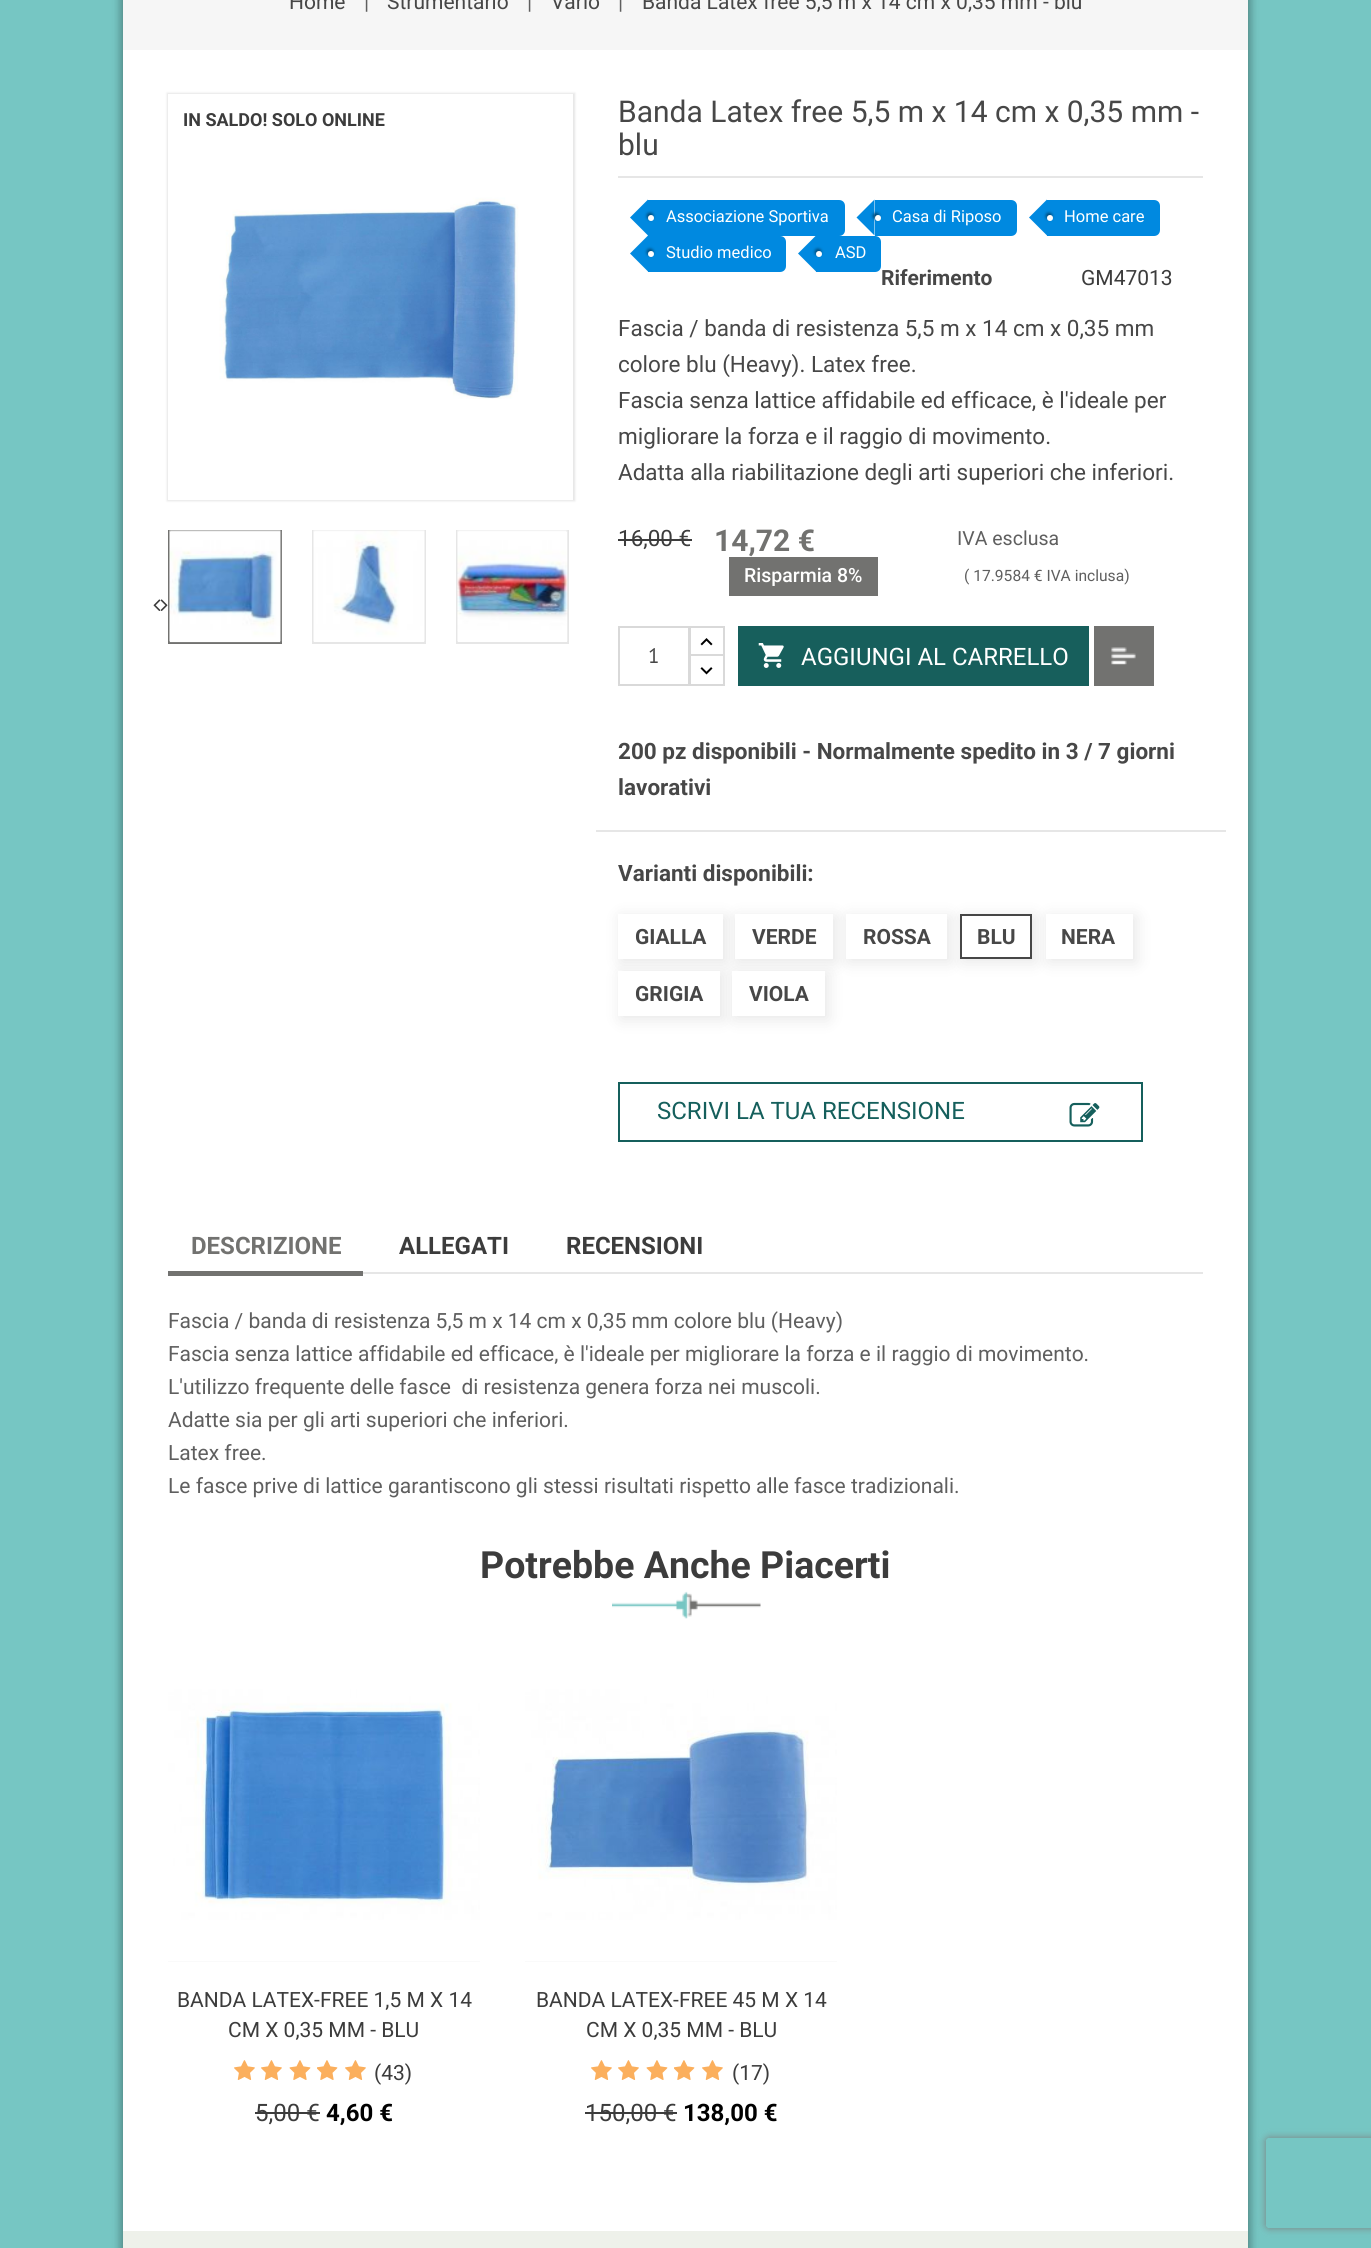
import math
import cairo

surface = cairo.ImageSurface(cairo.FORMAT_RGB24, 1371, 2248)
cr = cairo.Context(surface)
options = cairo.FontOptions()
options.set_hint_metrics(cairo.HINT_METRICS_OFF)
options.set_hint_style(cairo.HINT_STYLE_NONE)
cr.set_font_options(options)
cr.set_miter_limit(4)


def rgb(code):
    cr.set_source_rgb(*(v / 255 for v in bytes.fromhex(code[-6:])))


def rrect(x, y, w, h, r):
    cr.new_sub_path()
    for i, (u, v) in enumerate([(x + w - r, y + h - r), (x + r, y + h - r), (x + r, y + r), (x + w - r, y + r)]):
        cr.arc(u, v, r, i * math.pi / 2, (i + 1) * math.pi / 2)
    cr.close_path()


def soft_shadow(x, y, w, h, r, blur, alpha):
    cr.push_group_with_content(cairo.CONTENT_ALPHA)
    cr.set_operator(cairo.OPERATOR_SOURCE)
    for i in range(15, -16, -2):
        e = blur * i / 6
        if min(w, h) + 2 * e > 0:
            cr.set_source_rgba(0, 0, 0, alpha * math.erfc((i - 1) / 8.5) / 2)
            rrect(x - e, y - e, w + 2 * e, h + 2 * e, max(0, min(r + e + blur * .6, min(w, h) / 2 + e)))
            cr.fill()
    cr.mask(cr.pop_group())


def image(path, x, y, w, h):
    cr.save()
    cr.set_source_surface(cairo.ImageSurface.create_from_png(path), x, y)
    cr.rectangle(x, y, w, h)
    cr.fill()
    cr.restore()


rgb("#76c6c3")
cr.paint()
rgb("#000000")
soft_shadow(120, -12, 1131, 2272, 0, 4, 0.3)
rgb("#ffffff")
cr.rectangle(123, 50, 1125, 2181)
cr.fill()
rgb("#f6f6f6")
cr.rectangle(123, 0, 1125, 50)
cr.fill()
rgb("#e6e6e6")
soft_shadow(167, 93, 408, 408, 0, 1, 1)
image("img/1.png", 168, 94, 405, 305)
rgb("#ffffff")
cr.rectangle(168, 399, 405, 101)
cr.fill()
image("img/2.png", 153, 599, 8, 12)
image("img/3.png", 160, 599, 8, 12)
cr.rectangle(169, 531, 112, 112)
rgb("#727270")
cr.stroke()
image("img/4.png", 169, 530, 113, 113)
cr.rectangle(313, 531, 112, 112)
rgb("#e6e6e6")
cr.stroke()
image("img/5.png", 313, 530, 112, 112)
cr.rectangle(457, 531, 111, 112)
cr.stroke()
image("img/6.png", 457, 530, 111, 112)
cr.rectangle(618, 176, 585, 2)
cr.fill()
rgb("#0089e0")
cr.new_path()
cr.move_to(648, 200)
cr.line_to(839, 200)
cr.curve_to(842.5, 200, 845, 202.5, 845, 206)
cr.line_to(845, 230)
cr.curve_to(845, 233.5, 842.5, 236, 839, 236)
cr.line_to(648, 236)
cr.close_path()
cr.fill()
cr.new_path()
cr.move_to(648, 199.5)
cr.line_to(648, 235.5)
cr.line_to(630, 217.5)
cr.close_path()
cr.fill()
rgb("#004977")
soft_shadow(647, 213, 6, 6, 3, 1.5, 1)
rgb("#ffffff")
cr.arc(651, 218, 3, 0, 2 * math.pi)
cr.fill()
rgb("#0089e0")
cr.new_path()
cr.move_to(875, 200)
cr.line_to(1011, 200)
cr.curve_to(1014.5, 200, 1017, 202.5, 1017, 206)
cr.line_to(1017, 230)
cr.curve_to(1017, 233.5, 1014.5, 236, 1011, 236)
cr.line_to(875, 236)
cr.close_path()
cr.fill()
cr.new_path()
cr.move_to(874.5, 199.5)
cr.line_to(874.5, 235.5)
cr.line_to(856.5, 217.5)
cr.close_path()
cr.fill()
rgb("#004977")
soft_shadow(873, 213, 6, 6, 3, 1.5, 1)
rgb("#ffffff")
cr.arc(878, 218, 3, 0, 2 * math.pi)
cr.fill()
rgb("#0089e0")
cr.new_path()
cr.move_to(1047, 200)
cr.line_to(1154, 200)
cr.curve_to(1157.5, 200, 1160, 202.5, 1160, 206)
cr.line_to(1160, 230)
cr.curve_to(1160, 233.5, 1157.5, 236, 1154, 236)
cr.line_to(1047, 236)
cr.close_path()
cr.fill()
cr.new_path()
cr.move_to(1047, 199.5)
cr.line_to(1047, 235.5)
cr.line_to(1029, 217.5)
cr.close_path()
cr.fill()
rgb("#004977")
soft_shadow(1046, 213, 6, 6, 3, 1.5, 1)
rgb("#ffffff")
cr.arc(1050, 218, 3, 0, 2 * math.pi)
cr.fill()
rgb("#0089e0")
cr.new_path()
cr.move_to(648, 236)
cr.line_to(780, 236)
cr.curve_to(783.5, 236, 786, 238.5, 786, 242)
cr.line_to(786, 266)
cr.curve_to(786, 269.5, 783.5, 272, 780, 272)
cr.line_to(648, 272)
cr.close_path()
cr.fill()
cr.new_path()
cr.move_to(648, 235.5)
cr.line_to(648, 271.5)
cr.line_to(630, 253.5)
cr.close_path()
cr.fill()
rgb("#004977")
soft_shadow(647, 249, 6, 6, 3, 1.5, 1)
rgb("#ffffff")
cr.arc(651, 254, 3, 0, 2 * math.pi)
cr.fill()
rgb("#0089e0")
cr.new_path()
cr.move_to(816, 236)
cr.line_to(875, 236)
cr.curve_to(878.5, 236, 881, 238.5, 881, 242)
cr.line_to(881, 266)
cr.curve_to(881, 269.5, 878.5, 272, 875, 272)
cr.line_to(816, 272)
cr.close_path()
cr.fill()
cr.new_path()
cr.move_to(816, 235.5)
cr.line_to(816, 271.5)
cr.line_to(798, 253.5)
cr.close_path()
cr.fill()
rgb("#004977")
soft_shadow(815, 249, 6, 6, 3, 1.5, 1)
rgb("#ffffff")
cr.arc(819, 254, 3, 0, 2 * math.pi)
cr.fill()
rgb("#3c3c3c")
cr.rectangle(618, 539, 74, 2)
cr.fill()
rgb("#727270")
cr.rectangle(729, 557, 149, 39)
cr.fill()
cr.rectangle(619, 627, 70, 58)
rgb("#d9d9d9")
cr.stroke()
cr.rectangle(690, 627, 34, 29)
cr.stroke()
image("img/7.png", 700, 638, 13, 8)
rgb("#ffffff")
cr.rectangle(691, 656, 32, 1)
cr.fill()
cr.rectangle(690, 655, 34, 30)
rgb("#d9d9d9")
cr.stroke()
image("img/8.png", 700, 667, 13, 8)
rgb("#175f5c")
cr.rectangle(738, 626, 351, 60)
cr.fill()
image("img/9.png", 758, 643, 26, 25)
rgb("#727270")
cr.rectangle(1094, 626, 60, 60)
cr.fill()
image("img/10.png", 1111, 647, 25, 18)
rgb("#e6e6e6")
cr.rectangle(596, 830, 630, 2)
cr.fill()
rgb("#000000")
soft_shadow(621, 917, 105, 45, 0, 8, 0.1)
rgb("#ffffff")
cr.rectangle(618, 914, 105, 45)
cr.fill()
rgb("#000000")
soft_shadow(738, 917, 98, 45, 0, 8, 0.1)
rgb("#ffffff")
cr.rectangle(735, 914, 98, 45)
cr.fill()
rgb("#000000")
soft_shadow(849, 917, 101, 45, 0, 8, 0.1)
rgb("#ffffff")
cr.rectangle(846, 914, 101, 45)
cr.fill()
rgb("#000000")
soft_shadow(963, 917, 72, 45, 0, 8, 0.1)
rgb("#ffffff")
cr.rectangle(961, 915, 70, 43)
cr.fill_preserve()
rgb("#474747")
cr.stroke()
rgb("#000000")
soft_shadow(1049, 917, 87, 45, 0, 8, 0.1)
rgb("#ffffff")
cr.rectangle(1046, 914, 87, 45)
cr.fill()
rgb("#000000")
soft_shadow(621, 974, 102, 45, 0, 8, 0.1)
rgb("#ffffff")
cr.rectangle(618, 971, 102, 45)
cr.fill()
rgb("#000000")
soft_shadow(735, 974, 93, 45, 0, 8, 0.1)
rgb("#ffffff")
cr.rectangle(732, 971, 93, 45)
cr.fill()
cr.rectangle(619, 1083, 523, 58)
rgb("#155f5c")
cr.stroke()
image("img/11.png", 1069, 1102, 31, 25)
rgb("#e6e6e6")
cr.rectangle(363, 1272, 840, 2)
cr.fill()
rgb("#727270")
cr.rectangle(168, 1271, 195, 5)
cr.fill()
image("img/12.png", 612, 1591, 149, 28)
rgb("#f5f5f5")
cr.rectangle(168, 1961, 312, 1)
cr.fill()
image("img/13.png", 168, 1650, 312, 312)
image("img/14.png", 206, 1710, 237, 191)
image("img/15.png", 234, 2060, 21, 20)
image("img/15.png", 261, 2060, 21, 20)
image("img/16.png", 289, 2060, 22, 20)
image("img/17.png", 317, 2060, 21, 20)
image("img/15.png", 345, 2060, 21, 20)
rgb("#3c3c3c")
cr.rectangle(255, 2112, 65, 2)
cr.fill()
rgb("#f5f5f5")
cr.rectangle(525, 1961, 312, 1)
cr.fill()
image("img/18.png", 525, 1650, 312, 312)
image("img/19.png", 549, 1731, 256, 153)
image("img/15.png", 591, 2060, 21, 20)
image("img/15.png", 618, 2060, 21, 20)
image("img/16.png", 646, 2060, 22, 20)
image("img/17.png", 674, 2060, 21, 20)
image("img/15.png", 702, 2060, 21, 20)
rgb("#3c3c3c")
cr.rectangle(585, 2112, 92, 2)
cr.fill()
rgb("#eef1ea")
cr.rectangle(123, 2231, 1125, 17)
cr.fill()
cr.save()
cr.set_fill_rule(cairo.FILL_RULE_EVEN_ODD)
cr.new_path()
cr.move_to(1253, 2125)
cr.line_to(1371, 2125)
cr.line_to(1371, 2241)
cr.line_to(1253, 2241)
cr.close_path()
cr.move_to(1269, 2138)
cr.line_to(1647, 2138)
cr.curve_to(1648.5, 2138, 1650, 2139.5, 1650, 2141)
cr.line_to(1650, 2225)
cr.curve_to(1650, 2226.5, 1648.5, 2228, 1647, 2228)
cr.line_to(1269, 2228)
cr.curve_to(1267.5, 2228, 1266, 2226.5, 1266, 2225)
cr.line_to(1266, 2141)
cr.curve_to(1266, 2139.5, 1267.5, 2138, 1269, 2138)
cr.close_path()
cr.clip()
rgb("#808080")
soft_shadow(1266, 2138, 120, 90, 3, 4, 1)
cr.restore()
cr.select_font_face("Roboto")
cr.set_font_size(21)
rgb("#474747")
cr.move_to(289, 9)
cr.show_text("Home")
rgb("#5f5f5f")
cr.move_to(364, 9)
cr.show_text("|")
rgb("#474747")
cr.move_to(387, 9)
cr.show_text("Strumentario")
rgb("#5f5f5f")
cr.move_to(527, 9)
cr.show_text("|")
rgb("#474747")
cr.move_to(551, 9)
cr.show_text("Vario")
rgb("#5f5f5f")
cr.move_to(618, 9)
cr.show_text("|")
rgb("#474747")
cr.move_to(642, 9)
cr.show_text("Banda Latex free 5,5 m x 14 cm x 0,35 mm - blu")
cr.select_font_face("Roboto", cairo.FONT_SLANT_NORMAL, cairo.FONT_WEIGHT_BOLD)
cr.set_font_size(18)
rgb("#3c3c3c")
cr.move_to(183, 126)
cr.show_text("IN SALDO! SOLO ONLINE")
cr.select_font_face("Roboto")
cr.set_font_size(30)
rgb("#474747")
cr.move_to(618, 122)
cr.show_text("Banda Latex free 5,5 m x 14 cm x 0,35 mm -")
cr.move_to(618, 155)
cr.show_text("blu")
cr.set_font_size(16.5)
rgb("#ffffff")
for x, y, s in [
    (666, 222, "Associazione Sportiva"),
    (892, 222, "Casa di Riposo"),
    (1064, 222, "Home care"),
    (666, 258, "Studio medico"),
    (835, 258, "ASD"),
]:
    cr.move_to(x, y)
    cr.show_text(s)
cr.select_font_face("Roboto", cairo.FONT_SLANT_NORMAL, cairo.FONT_WEIGHT_BOLD)
cr.set_font_size(21)
rgb("#474747")
cr.move_to(881, 285)
cr.show_text("Riferimento")
cr.select_font_face("Roboto")
rgb("#3c3c3c")
cr.move_to(1081, 285)
cr.show_text("GM47013")
cr.set_font_size(22.5)
rgb("#474747")
for x, y, s in [
    (618, 336, "Fascia / banda di resistenza 5,5 m x 14 cm x 0,35 mm"),
    (618, 372, "colore blu (Heavy). Latex free."),
    (618, 408, "Fascia senza lattice affidabile ed efficace, è l'ideale per"),
    (618, 444, "migliorare la forza e il raggio di movimento."),
    (618, 480, "Adatta alla riabilitazione degli arti superiori che inferiori."),
]:
    cr.move_to(x, y)
    cr.show_text(s)
rgb("#3c3c3c")
cr.move_to(618, 546)
cr.show_text("16,00 €")
cr.select_font_face("Roboto", cairo.FONT_SLANT_NORMAL, cairo.FONT_WEIGHT_BOLD)
cr.set_font_size(30)
rgb("#727270")
cr.move_to(714, 551)
cr.show_text("14,72 €")
cr.select_font_face("Roboto Medium")
cr.set_font_size(19.5)
rgb("#ffffff")
cr.move_to(744, 582)
cr.show_text("Risparmia 8%")
cr.select_font_face("Roboto")
rgb("#5f5f5f")
cr.move_to(957, 545)
cr.show_text("IVA esclusa")
cr.set_font_size(15.6)
cr.move_to(964, 581)
cr.show_text("( 17.9584 € IVA inclusa)")
cr.select_font_face("PT Sans")
cr.set_font_size(21)
rgb("#474747")
cr.move_to(648, 663)
cr.show_text("1")
cr.select_font_face("Roboto")
cr.set_font_size(24)
rgb("#ffffff")
cr.move_to(801, 665)
cr.show_text("AGGIUNGI AL CARRELLO")
cr.select_font_face("Roboto", cairo.FONT_SLANT_NORMAL, cairo.FONT_WEIGHT_BOLD)
cr.set_font_size(22.5)
rgb("#474747")
for x, y, s in [
    (618, 759, "200 pz disponibili - Normalmente spedito in 3 / 7 giorni"),
    (618, 795, "lavorativi"),
    (618, 881, "Varianti disponibili:"),
]:
    cr.move_to(x, y)
    cr.show_text(s)
cr.set_font_size(21)
for x, y, s in [
    (635, 944, "GIALLA"),
    (752, 944, "VERDE"),
    (863, 944, "ROSSA"),
    (977, 944, "BLU"),
    (1061, 944, "NERA"),
    (635, 1001, "GRIGIA"),
    (749, 1001, "VIOLA"),
]:
    cr.move_to(x, y)
    cr.show_text(s)
cr.select_font_face("Roboto")
cr.set_font_size(24)
rgb("#155f5c")
cr.move_to(657, 1119)
cr.show_text("SCRIVI LA TUA RECENSIONE")
cr.select_font_face("Roboto", cairo.FONT_SLANT_NORMAL, cairo.FONT_WEIGHT_BOLD)
rgb("#727270")
cr.move_to(191, 1254)
cr.show_text("DESCRIZIONE")
rgb("#3c3c3c")
cr.move_to(399, 1254)
cr.show_text("ALLEGATI")
cr.move_to(566, 1254)
cr.show_text("RECENSIONI")
cr.select_font_face("Roboto")
cr.set_font_size(21)
rgb("#5f5f5f")
for x, y, s in [
    (168, 1328, "Fascia / banda di resistenza 5,5 m x 14 cm x 0,35 mm colore blu (Heavy)"),
    (168, 1361, "Fascia senza lattice affidabile ed efficace, è l'ideale per migliorare la forza e il raggio di movimento."),
    (168, 1394, "L'utilizzo frequente delle fasce  di resistenza genera forza nei muscoli."),
    (168, 1427, "Adatte sia per gli arti superiori che inferiori."),
    (168, 1460, "Latex free."),
    (168, 1493, "Le fasce prive di lattice garantiscono gli stessi risultati rispetto alle fasce tradizionali."),
]:
    cr.move_to(x, y)
    cr.show_text(s)
cr.select_font_face("Roboto", cairo.FONT_SLANT_NORMAL, cairo.FONT_WEIGHT_BOLD)
cr.set_font_size(37.5)
rgb("#3c3c3c")
cr.move_to(480, 1578)
cr.show_text("Potrebbe Anche Piacerti")
cr.select_font_face("Roboto")
cr.set_font_size(21)
for x, y, s in [
    (177, 2007, "BANDA LATEX-FREE 1,5 M X 14"),
    (228, 2037, "CM X 0,35 MM - BLU"),
    (374, 2080, "(43)"),
]:
    cr.move_to(x, y)
    cr.show_text(s)
cr.set_font_size(24)
cr.move_to(255, 2121)
cr.show_text("5,00 €")
cr.select_font_face("Roboto", cairo.FONT_SLANT_NORMAL, cairo.FONT_WEIGHT_BOLD)
rgb("#000000")
cr.move_to(326, 2121)
cr.show_text("4,60 €")
cr.select_font_face("Roboto")
cr.set_font_size(21)
rgb("#3c3c3c")
for x, y, s in [
    (536, 2007, "BANDA LATEX-FREE 45 M X 14"),
    (586, 2037, "CM X 0,35 MM - BLU"),
    (732, 2080, "(17)"),
]:
    cr.move_to(x, y)
    cr.show_text(s)
cr.set_font_size(24)
cr.move_to(585, 2121)
cr.show_text("150,00 €")
cr.select_font_face("Roboto", cairo.FONT_SLANT_NORMAL, cairo.FONT_WEIGHT_BOLD)
rgb("#000000")
cr.move_to(683, 2121)
cr.show_text("138,00 €")
surface.write_to_png("page.png")
